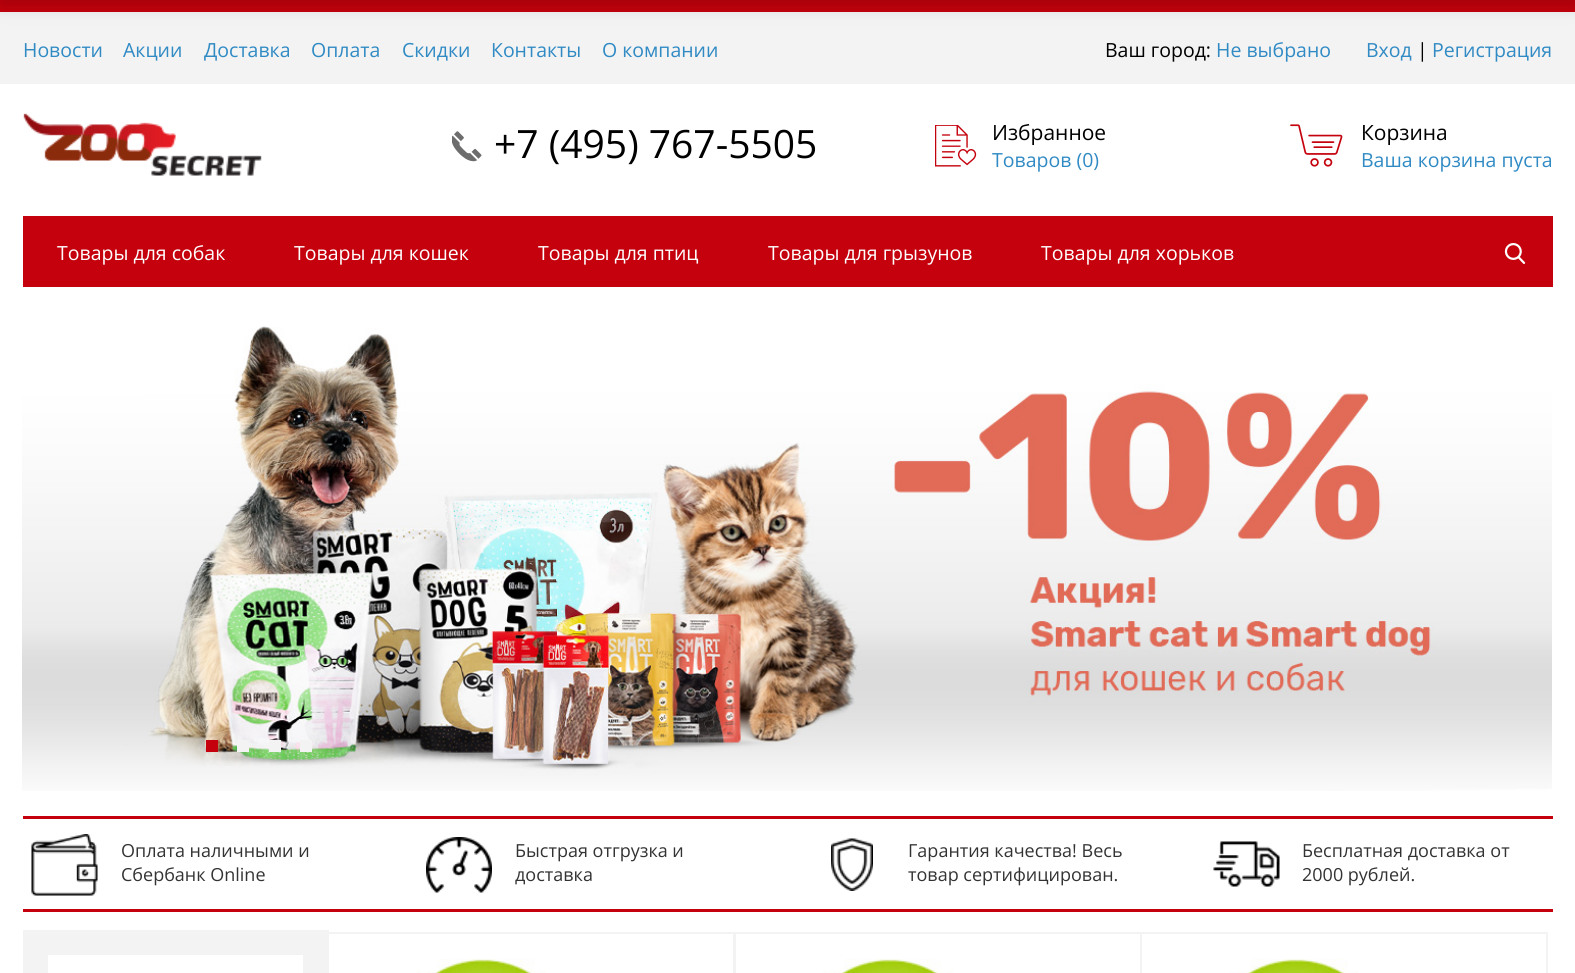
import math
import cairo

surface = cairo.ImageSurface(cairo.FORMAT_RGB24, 1575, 973)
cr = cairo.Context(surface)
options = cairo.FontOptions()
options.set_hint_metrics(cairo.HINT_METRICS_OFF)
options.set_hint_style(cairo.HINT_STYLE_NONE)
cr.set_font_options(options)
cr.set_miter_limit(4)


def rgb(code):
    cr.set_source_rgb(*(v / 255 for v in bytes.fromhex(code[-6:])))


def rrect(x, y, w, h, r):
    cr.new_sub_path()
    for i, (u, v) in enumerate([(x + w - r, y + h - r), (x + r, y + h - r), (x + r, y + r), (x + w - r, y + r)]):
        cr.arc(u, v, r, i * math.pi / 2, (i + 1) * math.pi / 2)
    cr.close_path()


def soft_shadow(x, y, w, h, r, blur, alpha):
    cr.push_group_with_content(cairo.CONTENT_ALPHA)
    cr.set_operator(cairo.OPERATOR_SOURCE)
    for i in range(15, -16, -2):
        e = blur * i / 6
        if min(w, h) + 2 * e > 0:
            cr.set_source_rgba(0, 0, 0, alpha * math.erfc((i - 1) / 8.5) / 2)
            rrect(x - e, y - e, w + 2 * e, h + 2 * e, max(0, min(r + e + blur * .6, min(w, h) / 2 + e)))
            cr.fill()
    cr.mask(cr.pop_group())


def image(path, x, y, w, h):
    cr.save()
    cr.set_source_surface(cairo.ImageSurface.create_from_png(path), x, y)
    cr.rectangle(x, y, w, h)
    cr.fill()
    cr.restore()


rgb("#ffffff")
cr.paint()
rgb("#f3f3f3")
cr.rectangle(0, 12, 1575, 72)
cr.fill()
rgb("#c4010c")
cr.rectangle(0, 0, 1575, 12)
cr.fill()
rgb("#000000")
soft_shadow(0, -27, 1575, 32, 0, 9, 0.18)
image("img/1.png", 23, 113, 239, 63)
image("img/2.png", 452, 131, 30, 31)
image("img/3.png", 935, 125, 42, 42)
image("img/4.png", 1290, 124, 53, 43)
rgb("#c4010c")
cr.rectangle(23, 216, 1530, 71)
cr.fill()
image("img/5.png", 1504, 243, 22, 21)
image("img/6.png", 22, 326, 1530, 465)
for x, y, w, h, color in [
    (206, 740, 12, 12, "#c4010c"),
    (237, 740, 12, 12, "#f3f3f3"),
    (269, 740, 12, 12, "#f3f3f3"),
    (300, 740, 12, 12, "#f3f3f3"),
    (23, 816, 1530, 3, "#c4010c"),
    (23, 909, 1530, 3, "#c4010c"),
]:
    rgb(color)
    cr.rectangle(x, y, w, h)
    cr.fill()
image("img/7.png", 31, 834, 67, 62)
image("img/8.png", 426, 837, 66, 56)
image("img/9.png", 831, 838, 42, 53)
image("img/10.png", 1213, 841, 67, 46)
rgb("#f3f3f3")
cr.rectangle(23, 930, 306, 43)
cr.fill()
rgb("#ffffff")
cr.rectangle(48, 955, 255, 18)
cr.fill()
cr.rectangle(328, 933, 406, 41)
rgb("#f3f3f3")
cr.stroke()
image("img/11.png", 416, 959, 130, 14)
cr.rectangle(735, 933, 406, 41)
cr.stroke()
image("img/12.png", 823, 959, 130, 14)
cr.rectangle(1141, 933, 406, 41)
cr.stroke()
image("img/13.png", 1230, 959, 129, 14)
cr.select_font_face("Open Sans")
cr.set_font_size(19.5)
rgb("#308ac4")
for x, y, s in [
    (23, 57, "Новости"),
    (123, 57, "Акции"),
    (204, 57, "Доставка"),
    (311, 57, "Оплата"),
    (402, 57, "Скидки"),
    (491, 57, "Контакты"),
    (602, 57, "О компании"),
]:
    cr.move_to(x, y)
    cr.show_text(s)
rgb("#000000")
cr.move_to(1105, 57)
cr.show_text("Ваш город:")
rgb("#308ac4")
cr.move_to(1216, 57)
cr.show_text("Не выбрано")
cr.move_to(1366, 57)
cr.show_text("Вход")
rgb("#000000")
cr.move_to(1417, 57)
cr.show_text("|")
rgb("#308ac4")
cr.move_to(1432, 57)
cr.show_text("Регистрация")
cr.set_font_size(39)
rgb("#000000")
cr.move_to(494, 158)
cr.show_text("+7 (495) 767-5505")
cr.set_font_size(21)
cr.move_to(992, 140)
cr.show_text("Избранное")
cr.set_font_size(19.5)
rgb("#308ac4")
cr.move_to(992, 167)
cr.show_text("Товаров (0)")
cr.set_font_size(21)
rgb("#000000")
cr.move_to(1361, 140)
cr.show_text("Корзина")
cr.set_font_size(19.5)
rgb("#308ac4")
cr.move_to(1361, 167)
cr.show_text("Ваша корзина пуста")
rgb("#ffffff")
for x, y, s in [
    (57, 260, "Товары для собак"),
    (294, 260, "Товары для кошек"),
    (538, 260, "Товары для птиц"),
    (768, 260, "Товары для грызунов"),
    (1041, 260, "Товары для хорьков"),
]:
    cr.move_to(x, y)
    cr.show_text(s)
cr.set_font_size(18)
rgb("#333333")
for x, y, s in [
    (121, 857, "Оплата наличными и"),
    (121, 881, "Сбербанк Online"),
    (515, 857, "Быстрая отгрузка и"),
    (515, 881, "доставка"),
    (908, 857, "Гарантия качества! Весь"),
    (908, 881, "товар сертифицирован."),
    (1302, 857, "Бесплатная доставка от"),
    (1302, 881, "2000 рублей."),
]:
    cr.move_to(x, y)
    cr.show_text(s)
surface.write_to_png("page.png")
